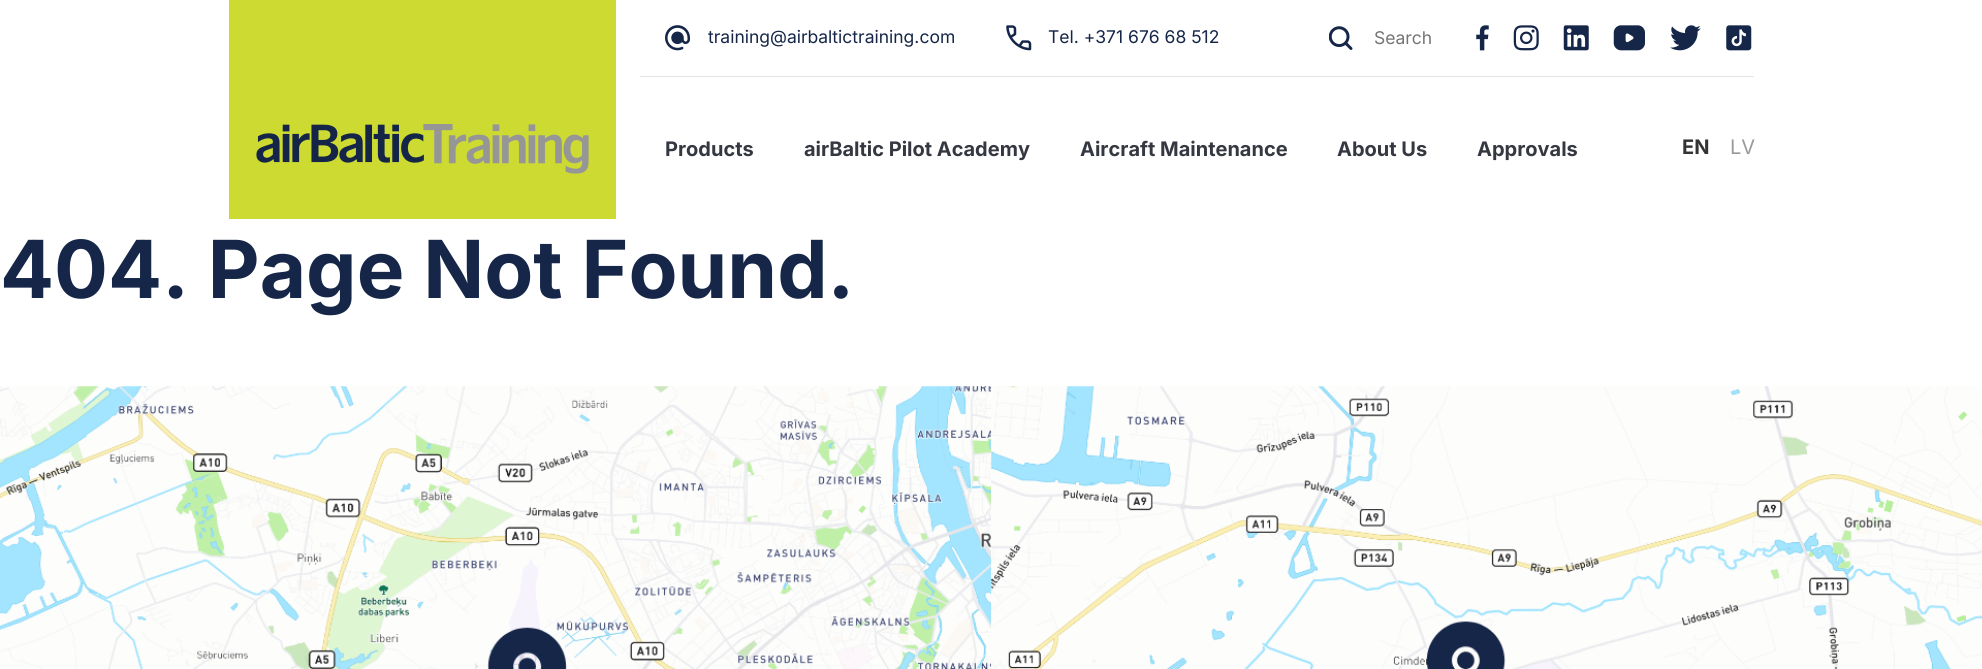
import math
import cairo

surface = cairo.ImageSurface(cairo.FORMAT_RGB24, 1982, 669)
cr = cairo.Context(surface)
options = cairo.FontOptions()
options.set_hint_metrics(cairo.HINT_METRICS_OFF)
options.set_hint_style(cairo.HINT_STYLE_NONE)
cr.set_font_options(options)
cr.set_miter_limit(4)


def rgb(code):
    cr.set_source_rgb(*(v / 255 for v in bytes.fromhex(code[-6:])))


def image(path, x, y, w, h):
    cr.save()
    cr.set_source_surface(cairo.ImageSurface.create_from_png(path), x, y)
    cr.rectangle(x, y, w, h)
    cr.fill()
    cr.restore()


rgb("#ffffff")
cr.paint()
rgb("#cdda32")
cr.rectangle(229, 0, 387, 219)
cr.fill()
image("img/1.png", 256, 124, 333, 50)
rgb("#e3e4e5")
cr.rectangle(640, 76, 1114, 1)
cr.fill()
image("img/2.png", 665, 25, 25, 26)
image("img/3.png", 1006, 25, 26, 26)
image("img/4.png", 1329, 26, 24, 24)
image("img/5.png", 1476, 25, 13, 26)
image("img/6.png", 1513, 25, 26, 26)
image("img/7.png", 1563, 25, 26, 26)
image("img/8.png", 1613, 25, 32, 26)
image("img/9.png", 1670, 25, 31, 26)
image("img/10.png", 1726, 25, 26, 26)
image("img/11.png", 0, 386, 992, 283)
image("img/12.png", 991, 386, 991, 283)
cr.select_font_face("Inter")
cr.set_font_size(17.5)
rgb("#152649")
cr.move_to(708, 43)
cr.show_text("training@airbaltictraining.com")
cr.move_to(1048, 43)
cr.show_text("Tel. +371 676 68 512")
rgb("#757575")
cr.move_to(1374, 44)
cr.show_text("Search")
cr.select_font_face("Inter", cairo.FONT_SLANT_NORMAL, cairo.FONT_WEIGHT_BOLD)
cr.set_font_size(20)
rgb("#353741")
for x, y, s in [
    (665, 156, "Products"),
    (804, 156, "airBaltic Pilot Academy"),
    (1080, 156, "Aircraft Maintenance"),
    (1337, 156, "About Us"),
    (1477, 156, "Approvals"),
]:
    cr.move_to(x, y)
    cr.show_text(s)
rgb("#333333")
cr.move_to(1682, 154)
cr.show_text("EN")
cr.select_font_face("Inter")
rgb("#999999")
cr.move_to(1730, 154)
cr.show_text("LV")
cr.select_font_face("Inter", cairo.FONT_SLANT_NORMAL, cairo.FONT_WEIGHT_BOLD)
cr.set_font_size(80)
rgb("#152649")
cr.move_to(0, 298)
cr.show_text("404. Page Not Found.")
surface.write_to_png("page.png")
